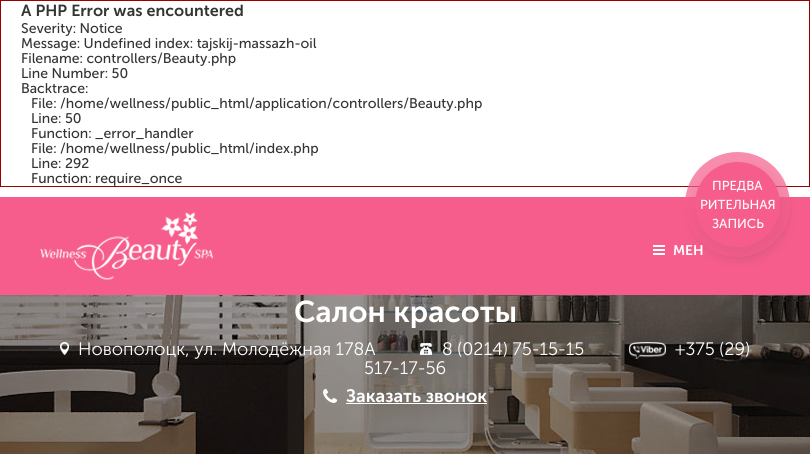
import math
import cairo

surface = cairo.ImageSurface(cairo.FORMAT_RGB24, 810, 454)
cr = cairo.Context(surface)
options = cairo.FontOptions()
options.set_hint_metrics(cairo.HINT_METRICS_OFF)
options.set_hint_style(cairo.HINT_STYLE_NONE)
cr.set_font_options(options)
cr.set_miter_limit(4)


def rgb(code):
    cr.set_source_rgb(*(v / 255 for v in bytes.fromhex(code[-6:])))


def rrect(x, y, w, h, r):
    cr.new_sub_path()
    for i, (u, v) in enumerate([(x + w - r, y + h - r), (x + r, y + h - r), (x + r, y + r), (x + w - r, y + r)]):
        cr.arc(u, v, r, i * math.pi / 2, (i + 1) * math.pi / 2)
    cr.close_path()


def soft_shadow(x, y, w, h, r, blur, alpha):
    cr.push_group_with_content(cairo.CONTENT_ALPHA)
    cr.set_operator(cairo.OPERATOR_SOURCE)
    for i in range(15, -16, -2):
        e = blur * i / 6
        if min(w, h) + 2 * e > 0:
            cr.set_source_rgba(0, 0, 0, alpha * math.erfc((i - 1) / 8.5) / 2)
            rrect(x - e, y - e, w + 2 * e, h + 2 * e, max(0, min(r + e + blur * .6, min(w, h) / 2 + e)))
            cr.fill()
    cr.mask(cr.pop_group())


def image(path, x, y, w, h):
    cr.save()
    cr.set_source_surface(cairo.ImageSurface.create_from_png(path), x, y)
    cr.rectangle(x, y, w, h)
    cr.fill()
    cr.restore()


rgb("#ffffff")
cr.paint()
cr.rectangle(0.5, 0.5, 809, 186)
rgb("#990000")
cr.set_line_width(1)
cr.stroke()
rgb("#f75d8c")
cr.rectangle(0, 197, 810, 98)
cr.fill()
rgb("#223c50")
soft_shadow(695, 167, 89, 89, 44.5, 7, 0.25)
image("img/1.png", 40, 212, 173, 68)
image("img/2.png", 653, 245, 12, 10)
image("img/3.png", 0, 295, 810, 159)
image("img/4.png", 629, 342, 37, 17)
image("img/5.png", 60, 342, 9, 13)
image("img/6.png", 420, 343, 12, 12)
image("img/7.png", 323, 388, 15, 15)
rgb("#ffffff")
cr.rectangle(346, 403, 141, 1)
cr.fill()
cr.select_font_face("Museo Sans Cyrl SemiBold")
cr.set_font_size(16)
rgb("#343434")
cr.move_to(21, 16)
cr.show_text("A PHP Error was encountered")
cr.select_font_face("Museo Sans Cyrl")
cr.set_font_size(14)
for x, y, s in [
    (21, 33, "Severity: Notice"),
    (21, 48, "Message: Undefined index: tajskij-massazh-oil"),
    (21, 63, "Filename: controllers/Beauty.php"),
    (21, 78, "Line Number: 50"),
    (21, 93, "Backtrace:"),
    (31, 108, "File: /home/wellness/public_html/application/controllers/Beauty.php"),
    (31, 123, "Line: 50"),
    (31, 138, "Function: _error_handler"),
    (31, 153, "File: /home/wellness/public_html/index.php"),
    (31, 168, "Line: 292"),
    (31, 183, "Function: require_once"),
]:
    cr.move_to(x, y)
    cr.show_text(s)
cr.select_font_face("Museo Sans Cyrl SemiBold")
rgb("#ffffff")
cr.move_to(673, 255)
cr.show_text("МЕН")
rgb("#f75d8c")
cr.new_path()
cr.arc(737.5, 204.5, 42.5, 0, 2 * math.pi)
cr.fill()
cr.set_source_rgba(0.969, 0.365, 0.549, 0.7)
cr.arc(737.5, 204.5, 52.5, 0, 2 * math.pi)
cr.fill()
cr.select_font_face("Museo Sans Cyrl")
cr.set_font_size(13)
rgb("#ffffff")
for x, y, s in [
    (712, 228, "ЗАПИСЬ"),
    (700, 209, "РИТЕЛЬНАЯ"),
    (712, 190, "ПРЕДВА"),
]:
    cr.move_to(x, y)
    cr.show_text(s)
cr.select_font_face("Museo Sans Cyrl SemiBold")
cr.set_font_size(30)
cr.move_to(294, 322)
cr.show_text("Салон красоты")
cr.select_font_face("Museo Sans Cyrl Light")
cr.set_font_size(18)
for x, y, s in [
    (675, 355, "+375 (29)"),
    (364, 374, "517-17-56"),
    (78, 355, "Новополоцк, ул. Молодёжная 178А"),
    (442, 355, "8 (0214) 75-15-15"),
]:
    cr.move_to(x, y)
    cr.show_text(s)
cr.select_font_face("Museo Sans Cyrl SemiBold")
cr.move_to(346, 402)
cr.show_text("Заказать звонок")
surface.write_to_png("page.png")
